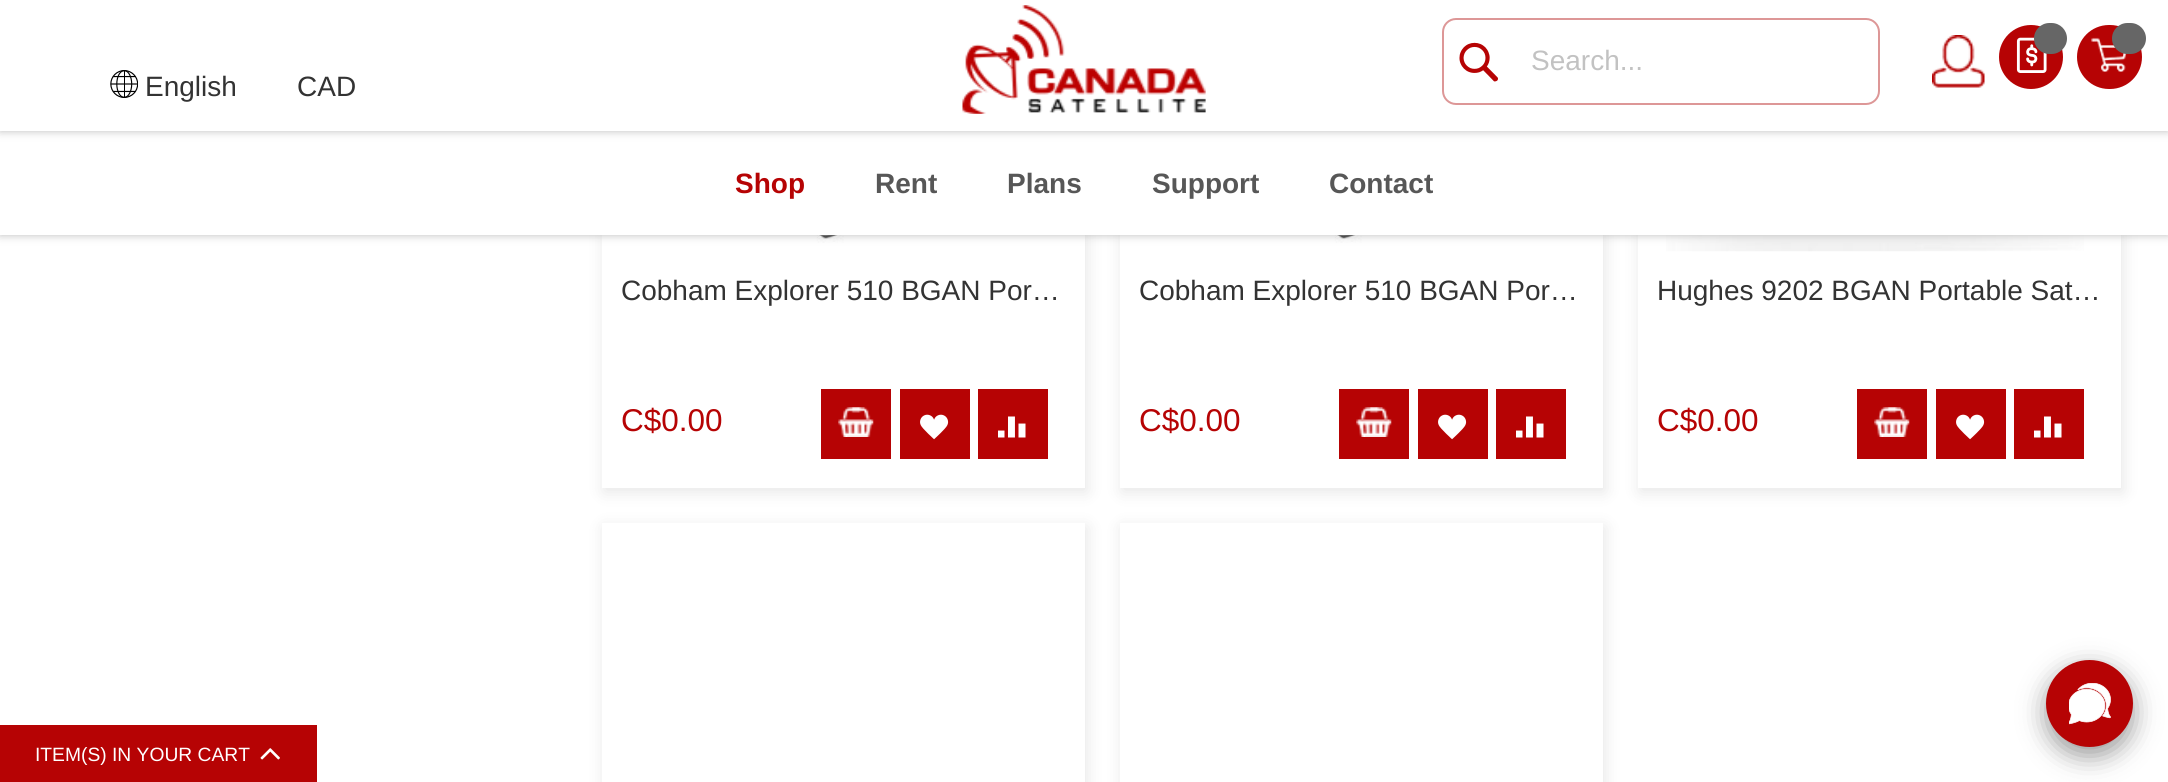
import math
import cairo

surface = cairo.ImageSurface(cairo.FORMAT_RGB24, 2168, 782)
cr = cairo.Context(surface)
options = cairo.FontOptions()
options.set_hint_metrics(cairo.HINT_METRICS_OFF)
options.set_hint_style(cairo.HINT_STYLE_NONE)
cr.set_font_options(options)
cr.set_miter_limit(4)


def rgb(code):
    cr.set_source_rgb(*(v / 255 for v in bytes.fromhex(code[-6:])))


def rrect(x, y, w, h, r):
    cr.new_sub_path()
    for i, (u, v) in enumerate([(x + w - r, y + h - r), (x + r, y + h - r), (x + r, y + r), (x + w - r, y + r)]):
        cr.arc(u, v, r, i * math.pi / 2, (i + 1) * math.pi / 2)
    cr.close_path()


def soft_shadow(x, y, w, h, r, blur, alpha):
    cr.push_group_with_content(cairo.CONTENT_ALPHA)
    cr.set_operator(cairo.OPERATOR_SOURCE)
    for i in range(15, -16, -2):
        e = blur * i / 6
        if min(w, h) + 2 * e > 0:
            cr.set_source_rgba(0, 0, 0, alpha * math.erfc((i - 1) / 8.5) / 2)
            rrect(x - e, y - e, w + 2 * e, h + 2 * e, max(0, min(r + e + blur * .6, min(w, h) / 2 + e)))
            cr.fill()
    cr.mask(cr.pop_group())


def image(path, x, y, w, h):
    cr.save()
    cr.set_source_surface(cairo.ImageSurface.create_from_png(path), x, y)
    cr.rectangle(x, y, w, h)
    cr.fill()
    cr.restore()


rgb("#ffffff")
cr.paint()
cr.save()
cr.set_fill_rule(cairo.FILL_RULE_EVEN_ODD)
cr.new_path()
cr.move_to(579, 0)
cr.line_to(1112, 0)
cr.line_to(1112, 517)
cr.line_to(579, 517)
cr.close_path()
cr.move_to(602, -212)
cr.line_to(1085, -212)
cr.line_to(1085, 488)
cr.line_to(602, 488)
cr.close_path()
cr.clip()
rgb("#000000")
soft_shadow(604, -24, 483, 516, 0, 8, 0.1)
cr.restore()
image("img/7.png", 639, 235, 418, 8)
cr.save()
cr.set_fill_rule(cairo.FILL_RULE_EVEN_ODD)
cr.new_path()
cr.move_to(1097, 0)
cr.line_to(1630, 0)
cr.line_to(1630, 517)
cr.line_to(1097, 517)
cr.close_path()
cr.move_to(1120, -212)
cr.line_to(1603, -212)
cr.line_to(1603, 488)
cr.line_to(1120, 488)
cr.close_path()
cr.clip()
rgb("#000000")
soft_shadow(1122, -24, 483, 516, 0, 8, 0.1)
cr.restore()
image("img/7.png", 1157, 235, 418, 8)
cr.save()
cr.set_fill_rule(cairo.FILL_RULE_EVEN_ODD)
cr.new_path()
cr.move_to(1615, 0)
cr.line_to(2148, 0)
cr.line_to(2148, 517)
cr.line_to(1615, 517)
cr.close_path()
cr.move_to(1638, -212)
cr.line_to(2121, -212)
cr.line_to(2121, 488)
cr.line_to(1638, 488)
cr.close_path()
cr.clip()
rgb("#000000")
soft_shadow(1640, -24, 483, 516, 0, 8, 0.1)
cr.restore()
image("img/11.png", 1666, 235, 418, 17)
rgb("#bdbdbd")
soft_shadow(0, 131, 2168, 104, 0, 4.5, 1)
rgb("#ffffff")
cr.rectangle(0, 131, 2168, 104)
cr.fill()
rgb("#bdbdbd")
soft_shadow(0, 0, 2168, 131, 0, 4.5, 1)
rgb("#ffffff")
cr.rectangle(0, 0, 2168, 131)
cr.fill()
image("img/1.png", 962, 5, 244, 109)
rrect(1443, 19, 436, 85, 13)
rgb("#dd9797")
cr.stroke()
image("img/2.png", 1459, 42, 39, 40)
image("img/3.png", 1932, 35, 53, 53)
rgb("#b60304")
cr.arc(2031, 57, 32, 0, 2 * math.pi)
cr.fill()
image("img/4.png", 2016, 37, 31, 36)
rgb("#666666")
rrect(2034, 23, 33, 31, 15.5)
cr.fill()
rgb("#b60304")
rrect(2077, 25, 65, 64, 32)
cr.fill()
image("img/5.png", 2091, 37, 36, 35)
rgb("#666666")
rrect(2112, 23, 34, 31, 15.5)
cr.fill()
image("img/6.png", 110, 70, 28, 28)
rgb("#b60304")
cr.rectangle(821, 389, 70, 70)
cr.fill()
image("img/8.png", 838, 407, 36, 30)
cr.rectangle(900, 389, 70, 70)
cr.fill()
image("img/9.png", 920, 414, 29, 26)
cr.rectangle(978, 389, 70, 70)
cr.fill()
image("img/10.png", 998, 416, 28, 22)
cr.rectangle(1339, 389, 70, 70)
cr.fill()
image("img/8.png", 1356, 407, 36, 30)
cr.rectangle(1418, 389, 70, 70)
cr.fill()
image("img/9.png", 1438, 414, 29, 26)
cr.rectangle(1496, 389, 70, 70)
cr.fill()
image("img/10.png", 1516, 416, 28, 22)
cr.rectangle(1857, 389, 70, 70)
cr.fill()
image("img/12.png", 1874, 407, 36, 30)
cr.rectangle(1936, 389, 70, 70)
cr.fill()
image("img/9.png", 1956, 414, 29, 26)
cr.rectangle(2014, 389, 70, 70)
cr.fill()
image("img/10.png", 2034, 416, 28, 22)
cr.save()
cr.set_fill_rule(cairo.FILL_RULE_EVEN_ODD)
cr.new_path()
cr.move_to(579, 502)
cr.line_to(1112, 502)
cr.line_to(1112, 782)
cr.line_to(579, 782)
cr.close_path()
cr.move_to(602, 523)
cr.line_to(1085, 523)
cr.line_to(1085, 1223)
cr.line_to(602, 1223)
cr.close_path()
cr.clip()
rgb("#000000")
soft_shadow(604, 527, 483, 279, 0, 8, 0.1)
cr.restore()
cr.save()
cr.set_fill_rule(cairo.FILL_RULE_EVEN_ODD)
cr.new_path()
cr.move_to(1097, 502)
cr.line_to(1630, 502)
cr.line_to(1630, 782)
cr.line_to(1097, 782)
cr.close_path()
cr.move_to(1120, 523)
cr.line_to(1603, 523)
cr.line_to(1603, 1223)
cr.line_to(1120, 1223)
cr.close_path()
cr.clip()
rgb("#000000")
soft_shadow(1122, 527, 483, 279, 0, 8, 0.1)
cr.restore()
cr.rectangle(0, 725, 317, 57)
cr.fill()
image("img/13.png", 260, 748, 20, 12)
rgb("#000000")
soft_shadow(2046, 669, 87, 87, 43.5, 13, 0.4)
rgb("#b60304")
cr.arc(2089.5, 703.5, 43.5, 0, 2 * math.pi)
cr.fill()
image("img/14.png", 2069, 683, 42, 42)
cr.select_font_face("Liberation Sans")
cr.set_font_size(28)
rgb("#c2c2c2")
cr.move_to(1531, 70)
cr.show_text("Search...")
rgb("#333333")
cr.move_to(145, 96)
cr.show_text("English")
cr.move_to(297, 96)
cr.show_text("CAD")
cr.select_font_face("Liberation Sans", cairo.FONT_SLANT_NORMAL, cairo.FONT_WEIGHT_BOLD)
rgb("#b60304")
cr.move_to(735, 193)
cr.show_text("Shop")
rgb("#575757")
for x, y, s in [
    (875, 193, "Rent"),
    (1007, 193, "Plans"),
    (1152, 193, "Support"),
    (1329, 193, "Contact"),
]:
    cr.move_to(x, y)
    cr.show_text(s)
cr.select_font_face("Liberation Sans")
rgb("#333333")
cr.move_to(621, 300)
cr.show_text("Cobham Explorer 510 BGAN Por…")
cr.set_font_size(31.5)
rgb("#b60304")
cr.move_to(621, 431)
cr.show_text("C$0.00")
cr.set_font_size(28)
rgb("#333333")
cr.move_to(1139, 300)
cr.show_text("Cobham Explorer 510 BGAN Por…")
cr.set_font_size(31.5)
rgb("#b60304")
cr.move_to(1139, 431)
cr.show_text("C$0.00")
cr.set_font_size(28)
rgb("#333333")
cr.move_to(1657, 300)
cr.show_text("Hughes 9202 BGAN Portable Sat…")
cr.set_font_size(31.5)
rgb("#b60304")
cr.move_to(1657, 431)
cr.show_text("C$0.00")
cr.set_font_size(19.25)
rgb("#ffffff")
cr.move_to(35, 761)
cr.show_text("ITEM(S) IN YOUR CART")
surface.write_to_png("page.png")
